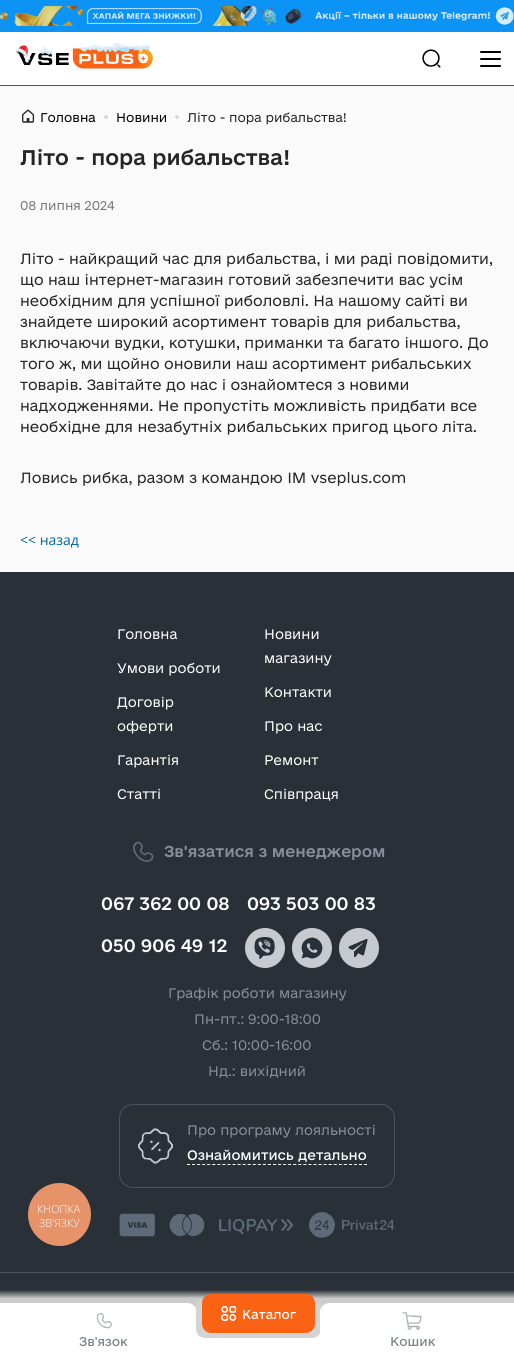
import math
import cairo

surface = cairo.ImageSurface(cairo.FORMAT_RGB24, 514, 1357)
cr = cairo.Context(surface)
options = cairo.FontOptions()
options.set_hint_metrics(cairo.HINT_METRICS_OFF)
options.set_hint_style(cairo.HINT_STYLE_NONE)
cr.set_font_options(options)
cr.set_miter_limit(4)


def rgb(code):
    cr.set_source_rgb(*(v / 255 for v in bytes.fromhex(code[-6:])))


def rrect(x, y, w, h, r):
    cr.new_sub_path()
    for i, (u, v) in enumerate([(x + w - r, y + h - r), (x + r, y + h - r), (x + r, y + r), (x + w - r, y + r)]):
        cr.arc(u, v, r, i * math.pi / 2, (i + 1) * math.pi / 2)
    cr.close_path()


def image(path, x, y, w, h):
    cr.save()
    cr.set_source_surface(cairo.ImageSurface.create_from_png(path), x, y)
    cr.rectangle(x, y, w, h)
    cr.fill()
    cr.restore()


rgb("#fbfafb")
cr.paint()
rgb("#0b93f6")
cr.rectangle(0, 0, 514, 32)
cr.fill()
image("img/1.png", 0, 6, 514, 20)
rgb("#ffffff")
cr.rectangle(0, 32, 514, 53)
cr.fill()
image("img/2.png", 16, 42, 137, 27)
image("img/3.png", 422, 49, 19, 19)
rgb("#495460")
cr.rectangle(0, 85, 514, 1)
cr.fill()
image("img/4.png", 480, 51, 21, 16)
image("img/5.png", 22, 109, 13, 14)
rgb("#d9d9d9")
cr.arc(106, 117, 2, 0, 2 * math.pi)
cr.fill()
cr.arc(177, 117, 2, 0, 2 * math.pi)
cr.fill()
rgb("#293037")
cr.rectangle(0, 572, 514, 740)
cr.fill()
image("img/6.png", 133, 841, 21, 21)
rgb("#c7cbd0")
cr.arc(265, 948, 20, 0, 2 * math.pi)
cr.fill()
image("img/7.png", 254, 937, 21, 22)
cr.arc(312, 948, 20, 0, 2 * math.pi)
cr.fill()
image("img/8.png", 301, 937, 22, 22)
cr.arc(359, 948, 20, 0, 2 * math.pi)
cr.fill()
image("img/9.png", 348, 939, 20, 18)
rrect(119.5, 1104.5, 275, 83, 13.5)
rgb("#495460")
cr.set_line_width(1)
cr.stroke()
image("img/10.png", 138, 1128, 35, 36)
cr.new_path()
cr.move_to(187, 1164.5)
cr.line_to(367, 1164.5)
rgb("#ffffff")
cr.set_dash([3, 2.06])
cr.stroke()
image("img/11.png", 119, 1213, 36, 24)
image("img/12.png", 169, 1214, 36, 23)
image("img/13.png", 219, 1219, 75, 16)
image("img/14.png", 309, 1212, 86, 26)
rgb("#495460")
cr.rectangle(0, 1272, 514, 1)
cr.fill()
rgb("#e6936a")
cr.arc(59.5, 1214.5, 31.5, 0, 2 * math.pi)
cr.fill()
gradient = cairo.LinearGradient(257, 1290, 257, 1337)
gradient.add_color_stop_rgba(0, 0.831, 0.827, 0.831, 0)
gradient.add_color_stop_rgba(0.18, 0.831, 0.827, 0.831, 0.96)
gradient.add_color_stop_rgba(1, 0.831, 0.827, 0.831, 0.96)
cr.set_source(gradient)
cr.rectangle(0, 1290, 514, 22)
cr.fill()
rgb("#ffffff")
cr.new_path()
cr.move_to(196, 1357)
cr.line_to(197, 1357)
cr.line_to(197, 1327)
cr.curve_to(197, 1318, 200, 1303, 187, 1303)
cr.curve_to(192, 1303, 196, 1307, 196, 1312)
cr.close_path()
cr.fill()
cr.new_path()
cr.move_to(0, 1303)
cr.line_to(187, 1303)
cr.curve_to(192, 1303, 196, 1307, 196, 1312)
cr.line_to(196, 1357)
cr.line_to(0, 1357)
cr.close_path()
cr.fill()
cr.new_path()
cr.move_to(204, 1303)
cr.curve_to(199, 1303, 195, 1307, 195, 1312)
cr.line_to(195, 1357)
cr.line_to(196, 1357)
cr.line_to(196, 1312)
cr.curve_to(196, 1307, 200, 1303, 205, 1303)
cr.close_path()
cr.fill()
cr.new_path()
cr.move_to(205, 1303)
cr.line_to(312, 1303)
cr.curve_to(317, 1303, 321, 1307, 321, 1312)
cr.line_to(321, 1357)
cr.line_to(196, 1357)
cr.line_to(196, 1312)
cr.curve_to(196, 1307, 200, 1303, 205, 1303)
cr.close_path()
cr.fill()
rgb("#d4d3d4")
cr.new_path()
cr.move_to(209, 1333)
cr.curve_to(210, 1336, 213, 1338, 217, 1338)
cr.line_to(312, 1338)
cr.curve_to(317, 1338, 321, 1334, 321, 1329)
cr.line_to(321, 1308)
cr.curve_to(321, 1304, 318, 1300, 314, 1299)
cr.curve_to(316, 1304, 315, 1312, 315, 1317)
cr.line_to(315, 1326)
cr.curve_to(313, 1336, 297, 1333, 290, 1333)
cr.close_path()
cr.fill()
cr.new_path()
cr.move_to(203, 1299)
cr.curve_to(199, 1300, 196, 1304, 196, 1308)
cr.line_to(196, 1329)
cr.curve_to(196, 1334, 200, 1338, 205, 1338)
cr.line_to(300, 1338)
cr.curve_to(304, 1338, 307, 1336, 308, 1333)
cr.line_to(227, 1333)
cr.curve_to(220, 1333, 204, 1336, 202, 1326)
cr.line_to(202, 1317)
cr.curve_to(202, 1312, 201, 1304, 203, 1299)
cr.close_path()
cr.fill()
rgb("#fa6314")
rrect(202, 1294, 113, 39, 9)
cr.fill()
image("img/15.png", 221, 1306, 16, 15)
image("img/16.png", 96, 1313, 16, 16)
rgb("#ffffff")
cr.new_path()
cr.move_to(329, 1303)
cr.curve_to(324, 1303, 320, 1307, 320, 1312)
cr.line_to(320, 1357)
cr.line_to(321, 1357)
cr.line_to(321, 1312)
cr.curve_to(321, 1307, 325, 1303, 330, 1303)
cr.close_path()
cr.fill()
cr.new_path()
cr.move_to(330, 1303)
cr.line_to(514, 1303)
cr.line_to(514, 1357)
cr.line_to(321, 1357)
cr.line_to(321, 1312)
cr.curve_to(321, 1307, 325, 1303, 330, 1303)
cr.close_path()
cr.fill()
image("img/17.png", 402, 1312, 20, 18)
cr.select_font_face("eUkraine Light")
cr.set_font_size(12)
rgb("#000000")
cr.move_to(40, 122)
cr.show_text("Головна")
cr.move_to(116, 122)
cr.show_text("Новини")
rgb("#252525")
cr.move_to(187, 122)
cr.show_text("Літо - пора рибальства!")
cr.select_font_face("eUkraine Medium")
cr.set_font_size(20)
cr.move_to(20, 165)
cr.show_text("Літо - пора рибальства!")
cr.select_font_face("eUkraine Light")
cr.set_font_size(12)
rgb("#767676")
cr.move_to(20, 210)
cr.show_text("08 липня 2024")
cr.set_font_size(14)
rgb("#252525")
for x, y, s in [
    (20, 264, "Літо - найкращий час для рибальства, і ми раді повідомити,"),
    (20, 285, "що наш інтернет-магазин готовий забезпечити вас усім"),
    (20, 306, "необхідним для успішної риболовлі. На нашому сайті ви"),
    (20, 327, "знайдете широкий асортимент товарів для рибальства,"),
    (20, 348, "включаючи вудки, котушки, приманки та багато іншого. До"),
    (20, 369, "того ж, ми щойно оновили наш асортимент рибальських"),
    (20, 390, "товарів. Завітайте до нас і ознайомтеся з новими"),
    (20, 411, "надходженнями. Не пропустіть можливість придбати все"),
    (20, 432, "необхідне для незабутніх рибальських пригод цього літа."),
    (20, 483, "Ловись рибка, разом з командою ІМ vseplus.com"),
]:
    cr.move_to(x, y)
    cr.show_text(s)
cr.select_font_face("Open Sans")
rgb("#006699")
cr.move_to(20, 545)
cr.show_text("<< назад")
cr.select_font_face("eUkraine Light")
cr.set_font_size(13)
rgb("#ffffff")
for x, y, s in [
    (117, 639, "Головна"),
    (264, 639, "Новини"),
    (264, 663, "магазину"),
    (117, 673, "Умови роботи"),
    (264, 697, "Контакти"),
    (117, 707, "Договір"),
    (117, 731, "оферти"),
    (264, 731, "Про нас"),
    (117, 765, "Гарантія"),
    (264, 765, "Ремонт"),
    (117, 799, "Статті"),
    (264, 799, "Співпраця"),
]:
    cr.move_to(x, y)
    cr.show_text(s)
cr.select_font_face("eUkraine Medium")
cr.set_font_size(15)
rgb("#868f9a")
cr.move_to(164, 857)
cr.show_text("Зв'язатися з менеджером")
cr.set_font_size(17)
rgb("#ffffff")
for x, y, s in [
    (101, 910, "067 362 00 08"),
    (247, 910, "093 503 00 83"),
    (101, 952, "050 906 49 12"),
]:
    cr.move_to(x, y)
    cr.show_text(s)
cr.select_font_face("eUkraine Light")
cr.set_font_size(13)
rgb("#868f9a")
for x, y, s in [
    (168, 998, "Графік роботи магазину"),
    (194, 1024, "Пн-пт.: 9:00-18:00"),
    (202, 1050, "Сб.: 10:00-16:00"),
    (208, 1076, "Нд.: вихідний"),
    (187, 1135, "Про програму лояльності"),
]:
    cr.move_to(x, y)
    cr.show_text(s)
cr.select_font_face("eUkraine")
rgb("#ffffff")
cr.move_to(187, 1160)
cr.show_text("Ознайомитись детально")
cr.select_font_face("Open Sans Light")
cr.set_font_size(11)
cr.move_to(37, 1213)
cr.show_text("КНОПКА")
cr.move_to(39, 1227)
cr.show_text("ЗВ'ЯЗКУ")
cr.select_font_face("eUkraine")
cr.set_font_size(12)
cr.move_to(242, 1319)
cr.show_text("Каталог")
rgb("#7c8488")
cr.move_to(79, 1346)
cr.show_text("Зв'язок")
cr.move_to(390, 1346)
cr.show_text("Кошик")
surface.write_to_png("page.png")
